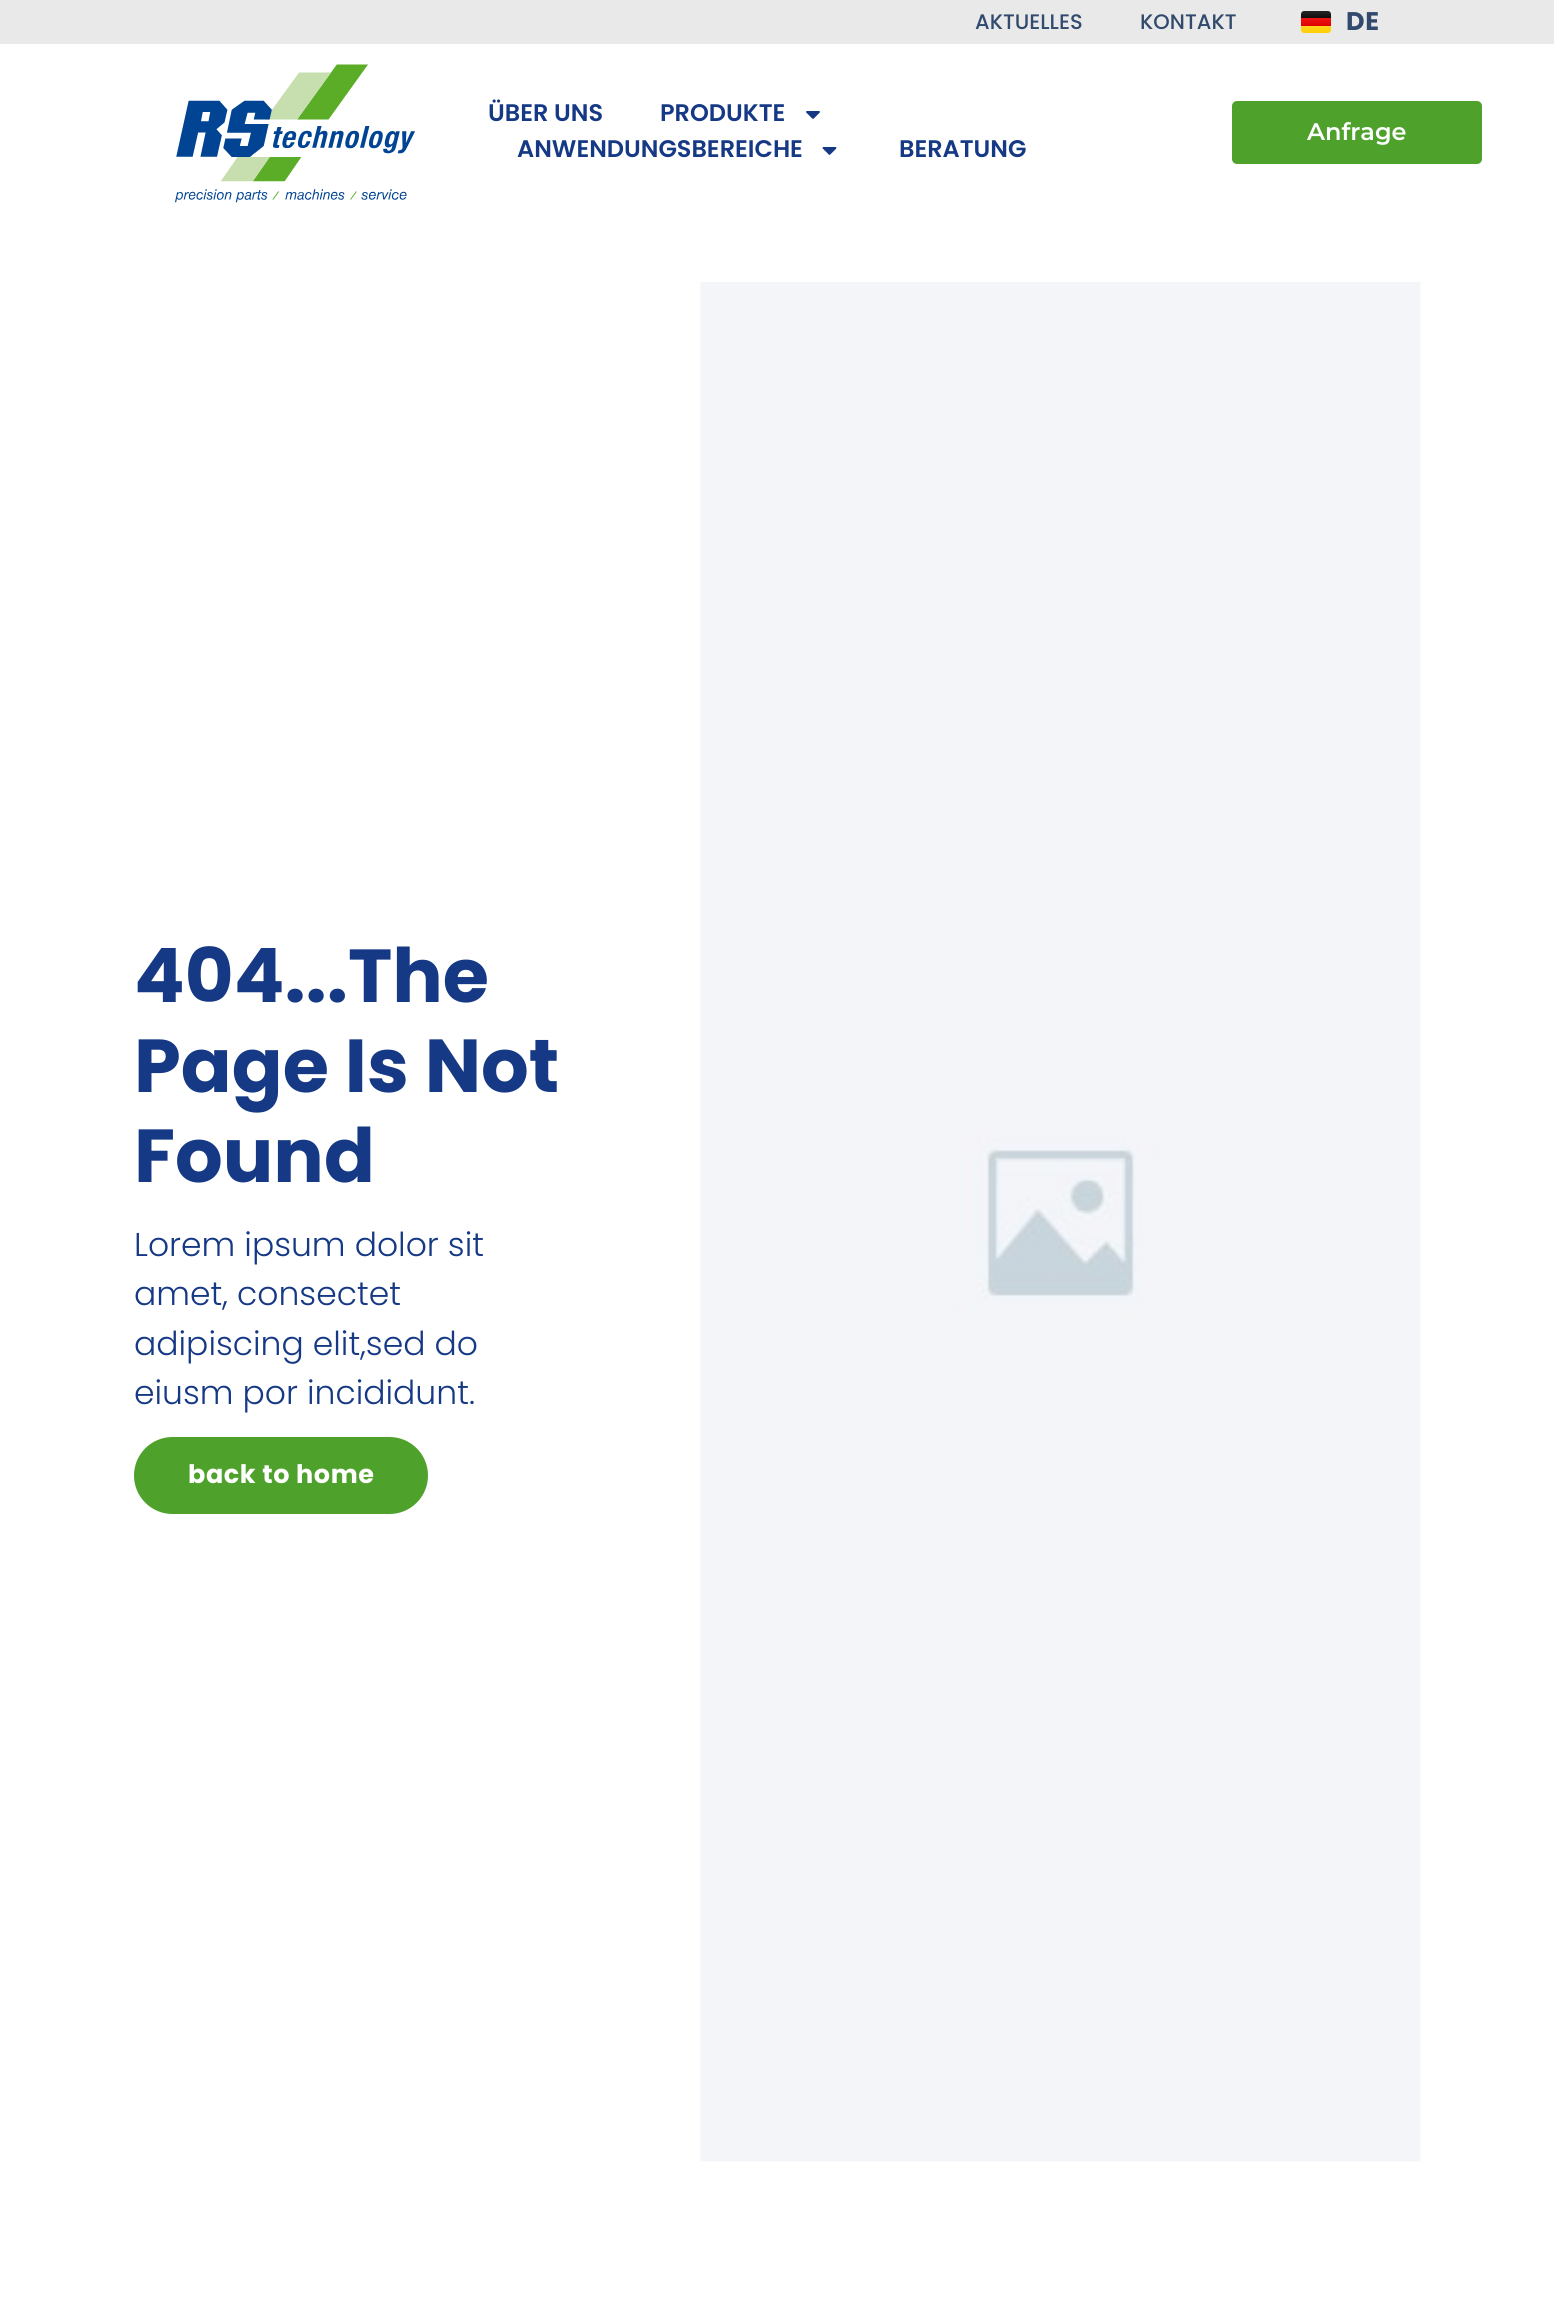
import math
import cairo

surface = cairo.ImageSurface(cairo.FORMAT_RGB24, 1554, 2320)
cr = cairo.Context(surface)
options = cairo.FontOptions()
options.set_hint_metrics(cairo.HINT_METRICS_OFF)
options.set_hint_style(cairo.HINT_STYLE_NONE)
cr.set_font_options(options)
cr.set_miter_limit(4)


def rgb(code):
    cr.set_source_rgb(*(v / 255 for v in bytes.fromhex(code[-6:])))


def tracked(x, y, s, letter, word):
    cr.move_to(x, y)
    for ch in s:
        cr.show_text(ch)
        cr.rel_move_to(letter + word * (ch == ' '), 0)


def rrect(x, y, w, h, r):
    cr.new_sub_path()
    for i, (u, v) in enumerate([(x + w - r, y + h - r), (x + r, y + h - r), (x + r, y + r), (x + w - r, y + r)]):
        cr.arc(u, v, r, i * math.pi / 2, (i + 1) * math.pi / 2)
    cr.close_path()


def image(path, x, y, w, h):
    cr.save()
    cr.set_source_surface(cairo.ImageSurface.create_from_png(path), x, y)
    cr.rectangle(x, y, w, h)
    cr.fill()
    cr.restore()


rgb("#ffffff")
cr.paint()
rgb("#e9e9e9")
cr.rectangle(0, 0, 1554, 44)
cr.fill()
gradient = cairo.LinearGradient(1316, 11, 1316, 18)
gradient.add_color_stop_rgba(0, 0.149, 0.149, 0.149, 1)
gradient.add_color_stop_rgba(1, 0.051, 0.051, 0.051, 1)
cr.set_source(gradient)
cr.new_path()
cr.move_to(1304, 11)
cr.line_to(1328, 11)
cr.curve_to(1329.5, 11, 1331, 12.5, 1331, 14)
cr.line_to(1331, 18)
cr.line_to(1301, 18)
cr.line_to(1301, 14)
cr.curve_to(1301, 12.5, 1302.5, 11, 1304, 11)
cr.close_path()
cr.fill()
gradient = cairo.LinearGradient(1316, 18, 1316, 26)
gradient.add_color_stop_rgba(0, 0.941, 0.082, 0.082, 1)
gradient.add_color_stop_rgba(1, 0.871, 0, 0, 1)
cr.set_source(gradient)
cr.rectangle(1301, 18, 30, 8)
cr.fill()
gradient = cairo.LinearGradient(1316, 26, 1316, 33)
gradient.add_color_stop_rgba(0, 1, 0.835, 0.129, 1)
gradient.add_color_stop_rgba(1, 1, 0.812, 0, 1)
cr.set_source(gradient)
cr.new_path()
cr.move_to(1301, 26)
cr.line_to(1331, 26)
cr.line_to(1331, 30)
cr.curve_to(1331, 31.5, 1329.5, 33, 1328, 33)
cr.line_to(1304, 33)
cr.curve_to(1302.5, 33, 1301, 31.5, 1301, 30)
cr.close_path()
cr.fill()
image("img/1.png", 175, 64, 240, 139)
image("img/2.png", 806, 111, 14, 8)
image("img/3.png", 822, 147, 15, 8)
rgb("#4ea22c")
rrect(1232, 101, 250, 63, 5)
cr.fill()
rrect(135, 1438, 292, 75, 37.5)
cr.fill_preserve()
cr.stroke()
image("img/4.png", 700, 282, 721, 1880)
cr.select_font_face("Poppins Medium")
cr.set_font_size(21)
rgb("#324a6d")
cr.move_to(975, 29)
cr.show_text("AKTUELLES")
cr.move_to(1140, 29)
cr.show_text("KONTAKT")
cr.select_font_face("Poppins", cairo.FONT_SLANT_NORMAL, cairo.FONT_WEIGHT_BOLD)
cr.set_font_size(25.5)
tracked(1346, 30, "DE", 0.6, 0)
cr.select_font_face("Poppins SemiBold")
cr.set_font_size(24)
rgb("#163985")
for x, y, s in [
    (488, 121, "ÜBER UNS"),
    (660, 121, "PRODUKTE"),
    (517, 157, "ANWENDUNGSBEREICHE"),
    (899, 157, "BERATUNG"),
]:
    cr.move_to(x, y)
    cr.show_text(s)
cr.select_font_face("Montserrat SemiBold")
rgb("#ffffff")
cr.move_to(1307, 140)
cr.show_text("Anfrage")
cr.select_font_face("Poppins", cairo.FONT_SLANT_NORMAL, cairo.FONT_WEIGHT_BOLD)
cr.set_font_size(75)
rgb("#163985")
for x, y, s in [
    (134, 1002, "404...The"),
    (134, 1092, "Page Is Not"),
    (134, 1182, "Found"),
]:
    cr.move_to(x, y)
    cr.show_text(s)
cr.select_font_face("Poppins Light")
cr.set_font_size(33)
for x, y, s in [
    (134, 1256, "Lorem ipsum dolor sit"),
    (134, 1305, "amet, consectet"),
    (134, 1355, "adipiscing elit,sed do"),
    (134, 1404, "eiusm por incididunt."),
]:
    cr.move_to(x, y)
    cr.show_text(s)
cr.select_font_face("Poppins", cairo.FONT_SLANT_NORMAL, cairo.FONT_WEIGHT_BOLD)
cr.set_font_size(25.5)
rgb("#ffffff")
tracked(188, 1483, "back to home", 0.6, 0)
surface.write_to_png("page.png")
